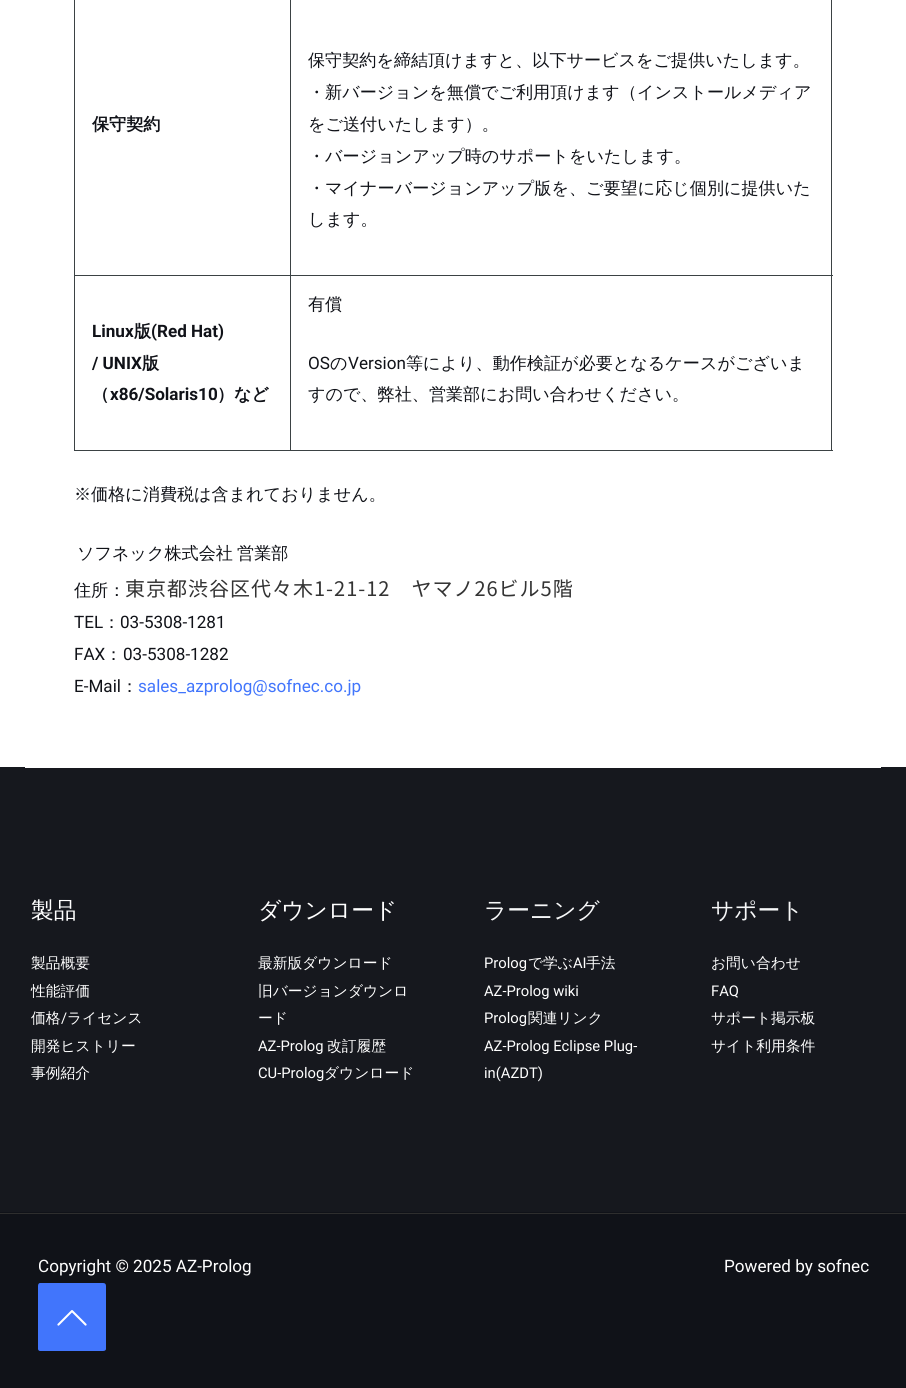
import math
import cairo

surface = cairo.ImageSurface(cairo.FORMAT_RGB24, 906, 1388)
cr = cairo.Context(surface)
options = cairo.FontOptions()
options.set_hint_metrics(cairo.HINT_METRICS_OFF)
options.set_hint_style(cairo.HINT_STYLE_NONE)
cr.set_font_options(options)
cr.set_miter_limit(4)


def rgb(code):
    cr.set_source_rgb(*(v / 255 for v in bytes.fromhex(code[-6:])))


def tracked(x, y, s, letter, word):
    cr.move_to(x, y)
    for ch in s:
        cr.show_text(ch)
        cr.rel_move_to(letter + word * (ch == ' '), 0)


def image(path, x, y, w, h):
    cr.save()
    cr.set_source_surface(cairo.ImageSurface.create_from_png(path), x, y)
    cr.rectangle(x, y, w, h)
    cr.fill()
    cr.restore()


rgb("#ffffff")
cr.paint()
for x, y, w, h, color in [
    (0, 767, 906, 445, "#16181e"),
    (25, 767, 856, 1, "#ffffff"),
    (74, 0, 1, 451, "#3b4244"),
    (290, 0, 1, 451, "#3b4244"),
    (75, 275, 216, 1, "#3b4244"),
    (831, 0, 1, 451, "#3b4244"),
    (291, 275, 542, 1, "#3b4244"),
    (75, 450, 758, 1, "#3b4244"),
    (0, 1212, 906, 176, "#101218"),
    (0, 1213, 906, 1, "#2e2e2e"),
]:
    rgb(color)
    cr.rectangle(x, y, w, h)
    cr.fill()
rgb("#4175fc")
cr.new_path()
cr.move_to(103, 1351)
cr.line_to(40, 1351)
cr.curve_to(39, 1351, 38, 1350, 38, 1349)
cr.line_to(38, 1286)
cr.curve_to(38, 1284, 39, 1283, 40, 1283)
cr.line_to(103, 1283)
cr.curve_to(105, 1283, 106, 1284, 106, 1286)
cr.line_to(106, 1349)
cr.curve_to(106, 1350, 105, 1351, 103, 1351)
cr.close_path()
cr.fill()
image("img/1.png", 57, 1310, 30, 16)
cr.select_font_face("WenQuanYi Zen Hei", cairo.FONT_SLANT_NORMAL, cairo.FONT_WEIGHT_BOLD)
cr.set_font_size(17.1)
rgb("#101218")
cr.move_to(92, 130)
cr.show_text("保守契約")
cr.select_font_face("WenQuanYi Zen Hei Medium")
for x, y, s in [
    (308, 66, "保守契約を締結頂けますと、以下サービスをご提供いたします。"),
    (308, 98, "・新バージョンを無償でご利用頂けます（インストールメディア"),
    (308, 130, "をご送付いたします）。"),
    (308, 162, "・バージョンアップ時のサポートをいたします。"),
    (308, 194, "・マイナーバージョンアップ版を、ご要望に応じ個別に提供いた"),
    (308, 225, "します。"),
]:
    cr.move_to(x, y)
    cr.show_text(s)
cr.select_font_face("Roboto", cairo.FONT_SLANT_NORMAL, cairo.FONT_WEIGHT_BOLD)
cr.move_to(92, 337)
cr.show_text("Linux")
cr.select_font_face("WenQuanYi Zen Hei", cairo.FONT_SLANT_NORMAL, cairo.FONT_WEIGHT_BOLD)
cr.move_to(134, 337)
cr.show_text("版")
cr.select_font_face("Roboto", cairo.FONT_SLANT_NORMAL, cairo.FONT_WEIGHT_BOLD)
cr.move_to(151, 337)
cr.show_text("(Red Hat)")
cr.move_to(92, 369)
cr.show_text("/ UNIX")
cr.select_font_face("WenQuanYi Zen Hei", cairo.FONT_SLANT_NORMAL, cairo.FONT_WEIGHT_BOLD)
cr.move_to(142, 369)
cr.show_text("版")
cr.move_to(92, 400)
cr.show_text("（")
cr.select_font_face("Roboto", cairo.FONT_SLANT_NORMAL, cairo.FONT_WEIGHT_BOLD)
cr.move_to(110, 400)
cr.show_text("x86/Solaris10")
cr.select_font_face("WenQuanYi Zen Hei", cairo.FONT_SLANT_NORMAL, cairo.FONT_WEIGHT_BOLD)
cr.move_to(217, 400)
cr.show_text("）など")
cr.select_font_face("WenQuanYi Zen Hei Medium")
cr.move_to(308, 310)
cr.show_text("有償")
cr.select_font_face("Roboto")
cr.move_to(308, 369)
cr.show_text("OS")
cr.select_font_face("WenQuanYi Zen Hei Medium")
cr.move_to(330, 369)
cr.show_text("の")
cr.select_font_face("Roboto")
cr.move_to(348, 369)
cr.show_text("Version")
cr.select_font_face("WenQuanYi Zen Hei Medium")
for x, y, s in [
    (406, 369, "等により、動作検証が必要となるケースがございま"),
    (308, 400, "すので、弊社、営業部にお問い合わせください。"),
    (74, 500, "※価格に消費税は含まれておりません。"),
]:
    cr.move_to(x, y)
    cr.show_text(s)
tracked(77, 559, "ソフネック株式会社 営業部", 0, -1)
cr.move_to(74, 596)
cr.show_text("住所：")
cr.select_font_face("Noto Sans JP")
cr.set_font_size(20)
rgb("#333333")
tracked(125, 596, "東京都渋谷区代々木1-21-12　ヤマノ26ビル5階", 1, 0)
cr.select_font_face("Roboto")
cr.set_font_size(17.1)
rgb("#101218")
cr.move_to(74, 628)
cr.show_text("TEL")
cr.select_font_face("WenQuanYi Zen Hei Medium")
cr.move_to(103, 628)
cr.show_text("：")
cr.select_font_face("Roboto")
cr.move_to(120, 628)
cr.show_text("03-5308-1281")
cr.move_to(74, 660)
cr.show_text("FAX")
cr.select_font_face("WenQuanYi Zen Hei Medium")
cr.move_to(105, 660)
cr.show_text("：")
cr.select_font_face("Roboto")
cr.move_to(123, 660)
cr.show_text("03-5308-1282")
cr.move_to(74, 692)
cr.show_text("E-Mail")
cr.select_font_face("WenQuanYi Zen Hei Medium")
cr.move_to(121, 692)
cr.show_text("：")
cr.select_font_face("Roboto")
rgb("#4175fc")
cr.move_to(138, 692)
cr.show_text("sales_azprolog@sofnec.co.jp")
cr.select_font_face("WenQuanYi Zen Hei Medium")
cr.set_font_size(22.75)
rgb("#ffffff")
cr.move_to(31, 918)
cr.show_text("製品")
cr.set_font_size(14.75)
for x, y, s in [
    (31, 968, "製品概要"),
    (31, 996, "性能評価"),
    (31, 1023, "価格"),
]:
    cr.move_to(x, y)
    cr.show_text(s)
cr.select_font_face("Roboto")
cr.move_to(61, 1023)
cr.show_text("/")
cr.select_font_face("WenQuanYi Zen Hei Medium")
for x, y, s in [
    (67, 1023, "ライセンス"),
    (31, 1051, "開発ヒストリー"),
    (31, 1078, "事例紹介"),
]:
    cr.move_to(x, y)
    cr.show_text(s)
cr.set_font_size(22.75)
cr.move_to(258, 918)
cr.show_text("ダウンロード")
cr.set_font_size(14.75)
for x, y, s in [
    (258, 968, "最新版ダウンロード"),
    (258, 996, "旧バージョンダウンロ"),
    (258, 1023, "ード"),
]:
    cr.move_to(x, y)
    cr.show_text(s)
cr.select_font_face("Roboto")
cr.move_to(258, 1051)
cr.show_text("AZ-Prolog")
cr.select_font_face("WenQuanYi Zen Hei Medium")
cr.move_to(327, 1051)
cr.show_text("改訂履歴")
cr.select_font_face("Roboto")
cr.move_to(258, 1078)
cr.show_text("CU-Prolog")
cr.select_font_face("WenQuanYi Zen Hei Medium")
cr.move_to(324, 1078)
cr.show_text("ダウンロード")
cr.set_font_size(22.75)
rgb("#f6f7f8")
cr.move_to(484, 918)
cr.show_text("ラーニング")
cr.select_font_face("Roboto")
cr.set_font_size(14.75)
rgb("#ffffff")
cr.move_to(484, 968)
cr.show_text("Prolog")
cr.select_font_face("WenQuanYi Zen Hei Medium")
cr.move_to(528, 968)
cr.show_text("で学ぶ")
cr.select_font_face("Roboto")
cr.move_to(573, 968)
cr.show_text("AI")
cr.select_font_face("WenQuanYi Zen Hei Medium")
cr.move_to(586, 968)
cr.show_text("手法")
cr.select_font_face("Roboto")
cr.move_to(484, 996)
cr.show_text("AZ-Prolog wiki")
cr.move_to(484, 1023)
cr.show_text("Prolog")
cr.select_font_face("WenQuanYi Zen Hei Medium")
cr.move_to(528, 1023)
cr.show_text("関連リンク")
cr.select_font_face("Roboto")
cr.move_to(484, 1051)
cr.show_text("AZ-Prolog Eclipse Plug-")
cr.move_to(484, 1078)
cr.show_text("in(AZDT)")
cr.select_font_face("WenQuanYi Zen Hei Medium")
cr.set_font_size(22.75)
rgb("#f6f7f8")
cr.move_to(711, 918)
cr.show_text("サポート")
cr.set_font_size(14.75)
rgb("#ffffff")
cr.move_to(711, 968)
cr.show_text("お問い合わせ")
cr.select_font_face("Roboto")
cr.move_to(711, 996)
cr.show_text("FAQ")
cr.select_font_face("WenQuanYi Zen Hei Medium")
cr.move_to(711, 1023)
cr.show_text("サポート掲示板")
cr.move_to(711, 1051)
cr.show_text("サイト利用条件")
cr.select_font_face("Roboto")
cr.set_font_size(17.1)
cr.move_to(38, 1272)
cr.show_text("Copyright © 2025 AZ-Prolog")
cr.move_to(724, 1272)
cr.show_text("Powered by sofnec")
surface.write_to_png("page.png")
